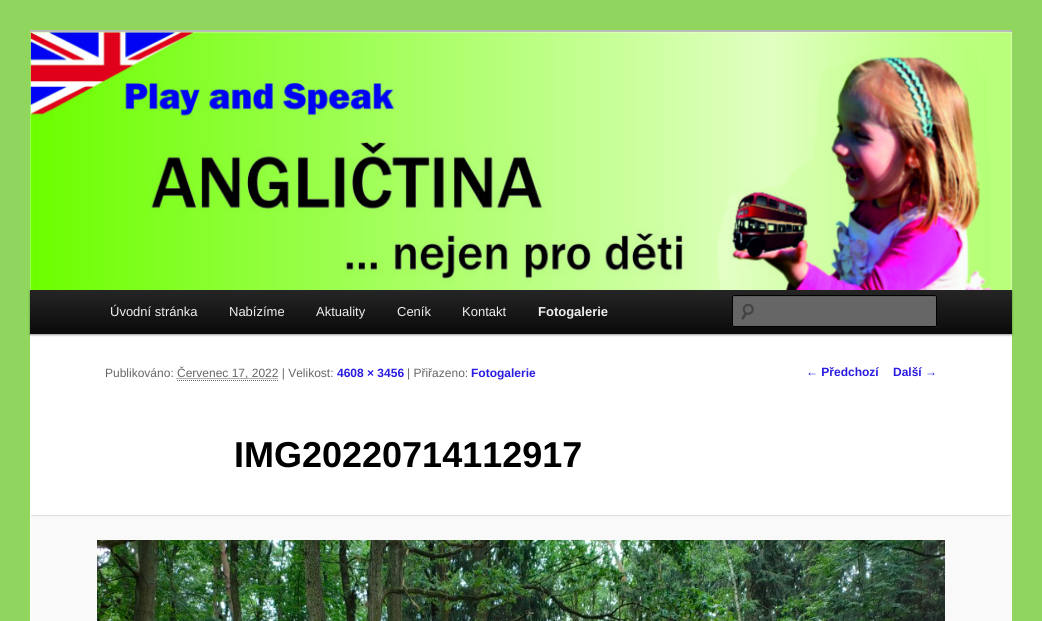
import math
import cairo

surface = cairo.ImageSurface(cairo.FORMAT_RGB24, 1042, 621)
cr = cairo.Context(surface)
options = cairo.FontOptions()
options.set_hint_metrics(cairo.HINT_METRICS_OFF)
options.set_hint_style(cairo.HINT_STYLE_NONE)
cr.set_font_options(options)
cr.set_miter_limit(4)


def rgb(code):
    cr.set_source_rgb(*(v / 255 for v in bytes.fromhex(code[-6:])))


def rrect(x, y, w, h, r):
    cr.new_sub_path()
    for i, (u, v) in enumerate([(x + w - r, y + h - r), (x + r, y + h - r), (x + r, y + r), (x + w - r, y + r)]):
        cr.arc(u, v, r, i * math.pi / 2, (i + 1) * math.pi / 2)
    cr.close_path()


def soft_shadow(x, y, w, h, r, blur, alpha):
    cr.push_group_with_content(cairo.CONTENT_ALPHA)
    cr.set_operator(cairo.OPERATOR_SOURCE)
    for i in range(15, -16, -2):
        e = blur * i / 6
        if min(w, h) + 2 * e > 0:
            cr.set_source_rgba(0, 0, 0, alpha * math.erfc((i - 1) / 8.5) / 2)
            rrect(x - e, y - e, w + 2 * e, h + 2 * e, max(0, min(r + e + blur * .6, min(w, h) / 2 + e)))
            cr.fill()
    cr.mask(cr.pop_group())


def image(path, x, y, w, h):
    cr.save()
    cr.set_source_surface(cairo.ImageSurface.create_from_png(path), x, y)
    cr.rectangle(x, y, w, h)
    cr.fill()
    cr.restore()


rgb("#90d65e")
cr.paint()
rgb("#ffffff")
cr.rectangle(30, 334, 982, 287)
cr.fill()
rgb("#bbbbbb")
cr.rectangle(30, 30, 982, 2)
cr.fill()
rgb("#000000")
soft_shadow(30, 291, 982, 44, 0, 1, 0.4)
image("img/1.png", 30, 32, 982, 258)
gradient = cairo.LinearGradient(521, 290, 521, 334)
gradient.add_color_stop_rgba(0, 0.145, 0.145, 0.145, 1)
gradient.add_color_stop_rgba(1, 0.039, 0.039, 0.039, 1)
cr.set_source(gradient)
cr.rectangle(30, 290, 982, 44)
cr.fill()
rgb("#666666")
rrect(732, 295, 205, 32, 2)
cr.fill()
image("img/2.png", 741, 303, 13, 17)
rgb("#5c5c5c")
cr.new_path()
cr.move_to(734, 297)
cr.line_to(936, 297)
cr.line_to(936, 298)
cr.curve_to(936, 297, 936, 296, 935, 296)
cr.line_to(734, 296)
cr.line_to(733, 296)
cr.line_to(733, 298)
cr.curve_to(733, 297, 733, 297, 734, 297)
cr.close_path()
cr.fill()
rrect(732.5, 295.5, 204, 31, 1.5)
rgb("#000000")
cr.set_line_width(1)
cr.stroke()
cr.new_path()
cr.move_to(177, 380.5)
cr.line_to(278, 380.5)
rgb("#666666")
cr.set_dash([1, 1])
cr.stroke()
cr.new_path()
cr.move_to(176.5, 378.5)
cr.line_to(278, 378.5)
cr.stroke()
rgb("#f9f9f9")
cr.rectangle(31, 516, 980, 105)
cr.fill()
rgb("#dddddd")
cr.rectangle(31, 515, 980, 1)
cr.fill()
image("img/3.png", 97, 540, 848, 81)
cr.select_font_face("Liberation Sans")
cr.set_font_size(13)
rgb("#eeeeee")
for x, y, s in [
    (110, 316, "Úvodní stránka"),
    (229, 316, "Nabízíme"),
    (316, 316, "Aktuality"),
    (397, 316, "Ceník"),
    (462, 316, "Kontakt"),
]:
    cr.move_to(x, y)
    cr.show_text(s)
cr.select_font_face("Liberation Sans", cairo.FONT_SLANT_NORMAL, cairo.FONT_WEIGHT_BOLD)
cr.move_to(538, 316)
cr.show_text("Fotogalerie")
cr.select_font_face("Liberation Sans")
cr.set_font_size(12)
rgb("#666666")
cr.move_to(105, 377)
cr.show_text("Publikováno:")
cr.move_to(177, 377)
cr.show_text("Červenec 17, 2022 | Velikost:")
cr.select_font_face("Liberation Sans", cairo.FONT_SLANT_NORMAL, cairo.FONT_WEIGHT_BOLD)
rgb("#291be0")
cr.move_to(337, 377)
cr.show_text("4608 × 3456")
cr.select_font_face("Liberation Sans")
rgb("#666666")
cr.move_to(407, 377)
cr.show_text("| Přiřazeno:")
cr.select_font_face("Liberation Sans", cairo.FONT_SLANT_NORMAL, cairo.FONT_WEIGHT_BOLD)
rgb("#291be0")
cr.move_to(471, 377)
cr.show_text("Fotogalerie")
cr.set_font_size(36)
rgb("#000000")
cr.move_to(234, 467)
cr.show_text("IMG20220714112917")
cr.set_font_size(12)
rgb("#291be0")
cr.move_to(806, 376)
cr.show_text("← Předchozí")
cr.move_to(893, 376)
cr.show_text("Další →")
surface.write_to_png("page.png")
